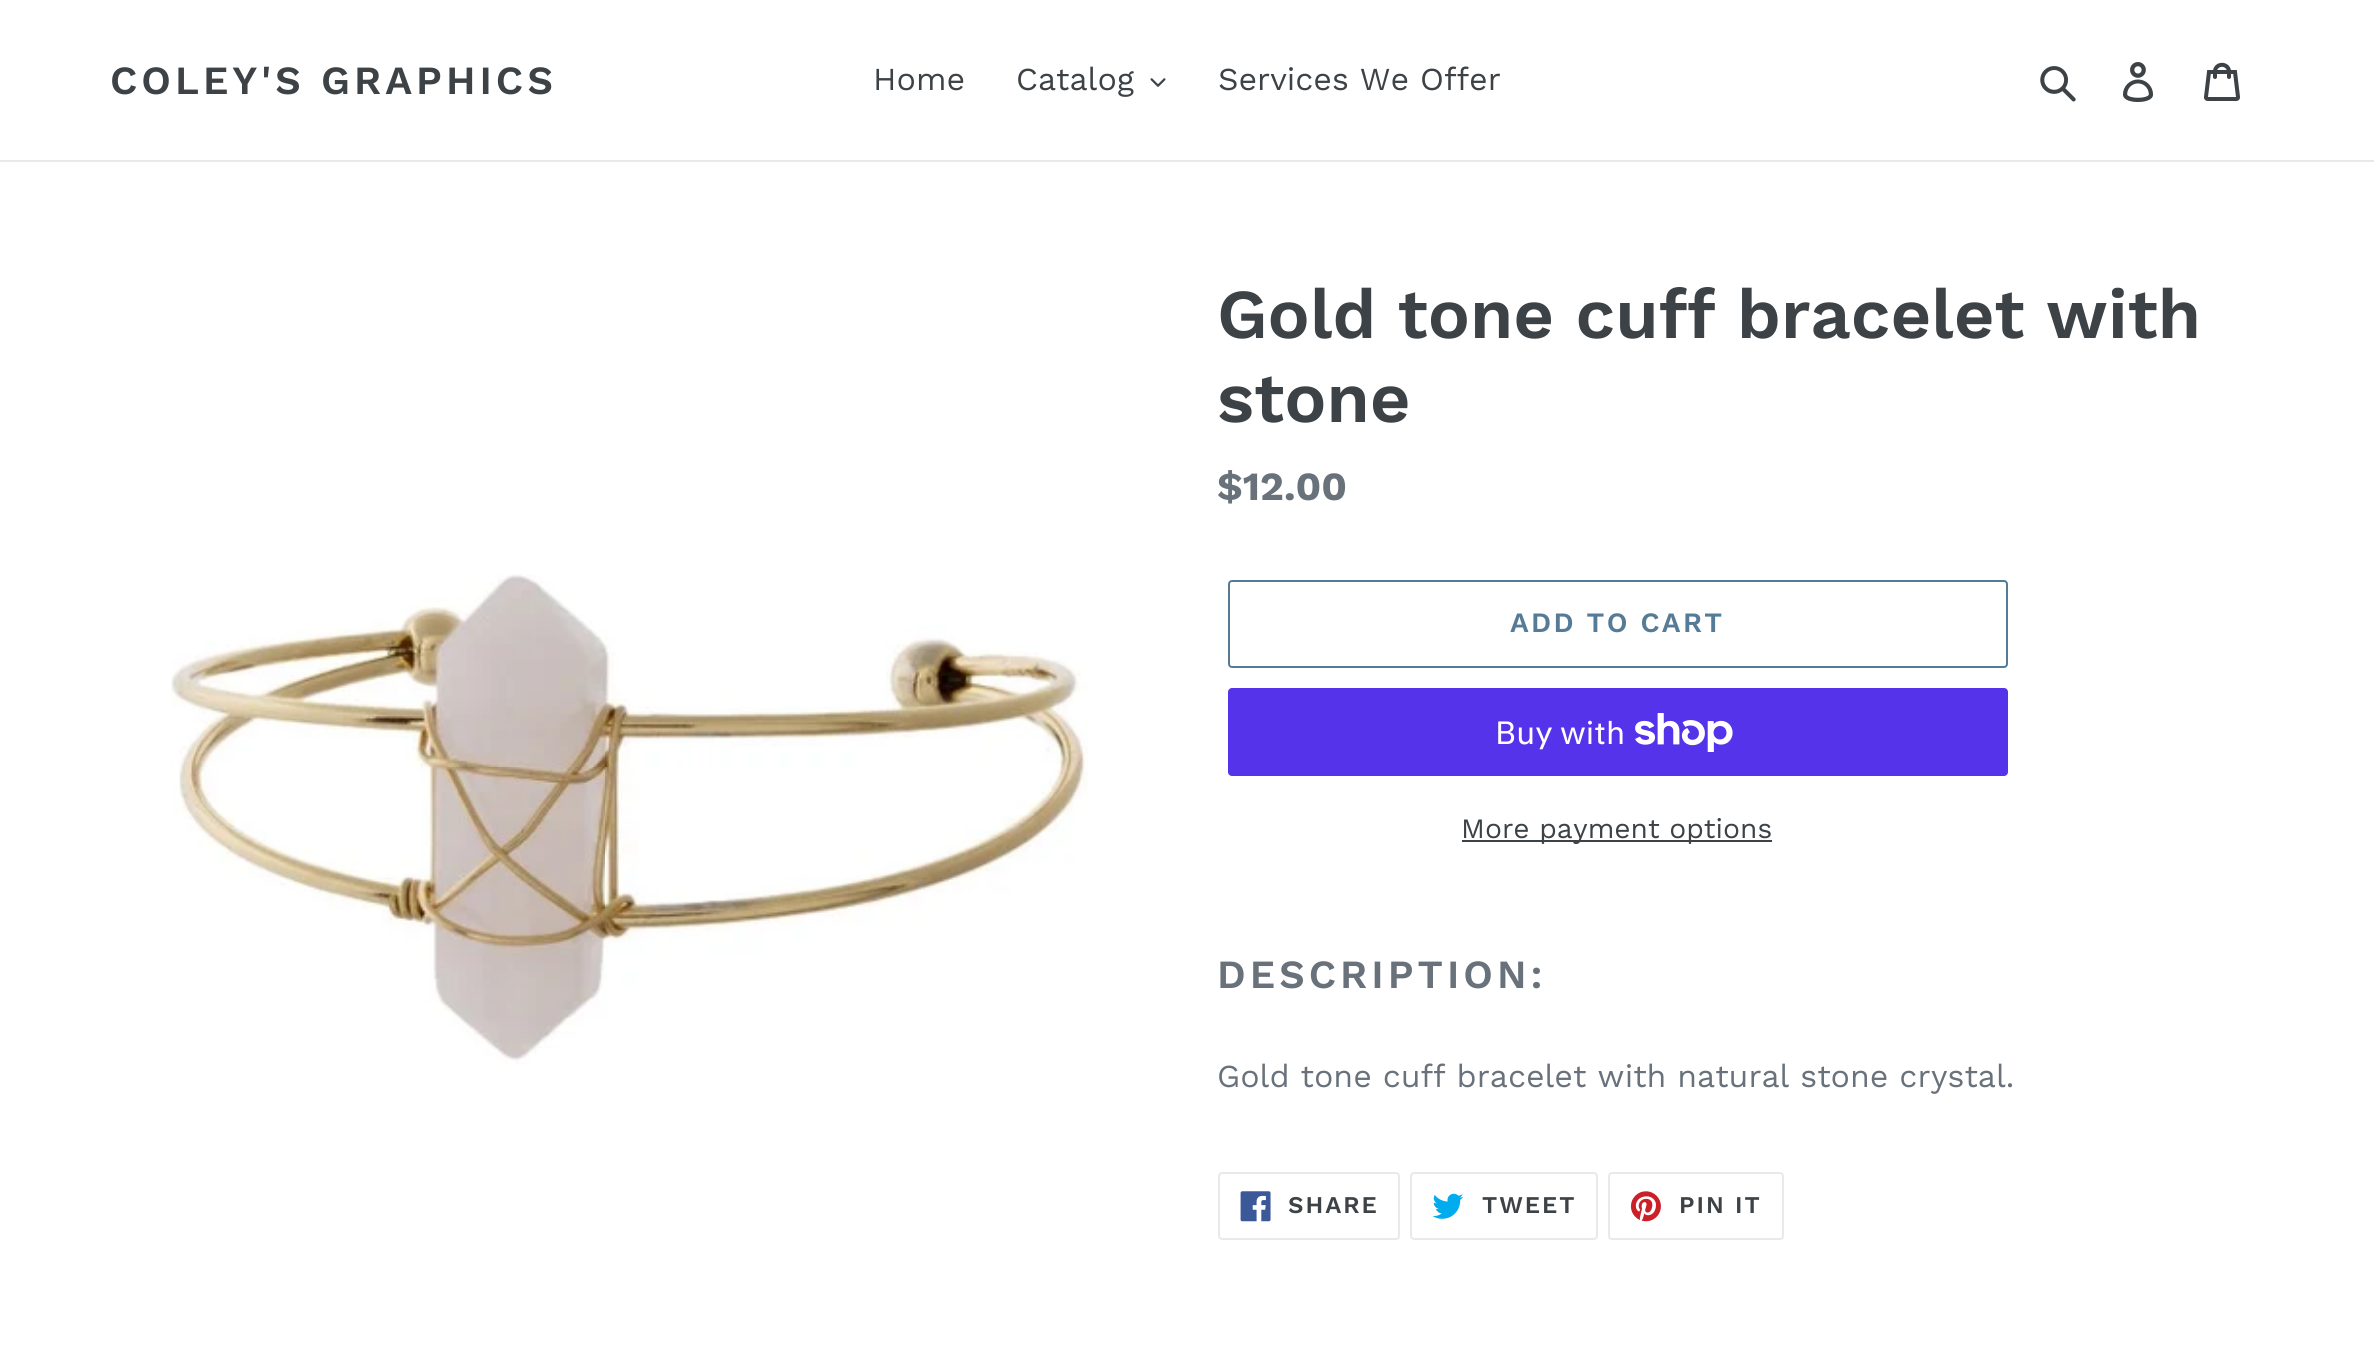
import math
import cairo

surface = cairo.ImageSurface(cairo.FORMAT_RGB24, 2374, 1360)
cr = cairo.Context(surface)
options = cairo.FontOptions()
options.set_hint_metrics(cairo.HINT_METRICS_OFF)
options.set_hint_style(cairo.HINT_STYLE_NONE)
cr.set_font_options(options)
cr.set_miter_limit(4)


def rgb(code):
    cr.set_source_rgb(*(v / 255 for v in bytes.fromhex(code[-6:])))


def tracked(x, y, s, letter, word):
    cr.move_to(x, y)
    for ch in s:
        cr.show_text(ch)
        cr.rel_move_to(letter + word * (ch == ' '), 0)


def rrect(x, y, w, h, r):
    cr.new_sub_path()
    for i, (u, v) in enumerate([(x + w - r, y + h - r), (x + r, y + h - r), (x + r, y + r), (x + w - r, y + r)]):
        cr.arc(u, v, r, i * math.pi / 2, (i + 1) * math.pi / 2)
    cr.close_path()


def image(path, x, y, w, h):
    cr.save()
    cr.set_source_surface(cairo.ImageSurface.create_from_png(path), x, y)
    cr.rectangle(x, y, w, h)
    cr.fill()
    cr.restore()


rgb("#ffffff")
cr.paint()
rgb("#e8e9eb")
cr.rectangle(0, 160, 2374, 2)
cr.fill()
image("img/1.png", 1150, 78, 16, 9)
image("img/2.png", 2040, 66, 36, 36)
image("img/3.png", 2123, 62, 31, 40)
image("img/4.png", 2204, 62, 36, 39)
image("img/5.png", 171, 574, 917, 490)
rrect(1229, 581, 778, 86, 3)
rgb("#557b97")
cr.stroke()
rgb("#5433eb")
rrect(1228, 688, 780, 88, 4)
cr.fill()
image("img/6.png", 1635, 713, 98, 39)
rgb("#3d4246")
cr.rectangle(1462, 840, 310, 2)
cr.fill()
rrect(1219, 1173, 180, 66, 3)
rgb("#e8e9eb")
cr.stroke()
image("img/7.png", 1240, 1191, 31, 31)
rrect(1411, 1173, 186, 66, 3)
cr.stroke()
image("img/8.png", 1432, 1193, 32, 26)
rrect(1609, 1173, 174, 66, 3)
cr.stroke()
image("img/9.png", 1630, 1191, 31, 31)
cr.select_font_face("Work Sans SemiBold")
cr.set_font_size(40)
rgb("#3d4246")
tracked(110, 94, "COLEY'S GRAPHICS", 4, 0)
cr.select_font_face("Work Sans")
cr.set_font_size(32)
for x, y, s in [
    (873, 90, "Home"),
    (1016, 90, "Catalog"),
    (1218, 90, "Services We Offer"),
]:
    cr.move_to(x, y)
    cr.show_text(s)
cr.select_font_face("Work Sans SemiBold")
cr.set_font_size(70)
cr.move_to(1217, 338)
cr.show_text("Gold tone cuff bracelet with")
cr.move_to(1217, 422)
cr.show_text("stone")
cr.select_font_face("Work Sans", cairo.FONT_SLANT_NORMAL, cairo.FONT_WEIGHT_BOLD)
cr.set_font_size(40)
rgb("#69727b")
cr.move_to(1217, 500)
cr.show_text("$12.00")
cr.select_font_face("Work Sans SemiBold")
cr.set_font_size(28)
rgb("#557b97")
tracked(1510, 632, "ADD TO CART", 2.25, 0)
cr.select_font_face("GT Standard")
cr.set_font_size(32)
rgb("#ffffff")
cr.move_to(1495, 744)
cr.show_text("Buy with")
cr.select_font_face("Work Sans")
cr.set_font_size(28)
rgb("#3d4246")
cr.move_to(1461, 838)
cr.show_text("More payment options")
cr.select_font_face("Work Sans SemiBold")
cr.set_font_size(40)
rgb("#69727b")
tracked(1217, 988, "DESCRIPTION:", 4, 0)
cr.select_font_face("Work Sans")
cr.set_font_size(32)
cr.move_to(1217, 1087)
cr.show_text("Gold tone cuff bracelet with natural stone crystal.")
cr.select_font_face("Work Sans SemiBold")
cr.set_font_size(24)
rgb("#3d4246")
for x, y, s in [
    (1288, 1213, "SHARE"),
    (1482, 1213, "TWEET"),
    (1679, 1213, "PIN IT"),
]:
    tracked(x, y, s, 2, 0)
surface.write_to_png("page.png")
